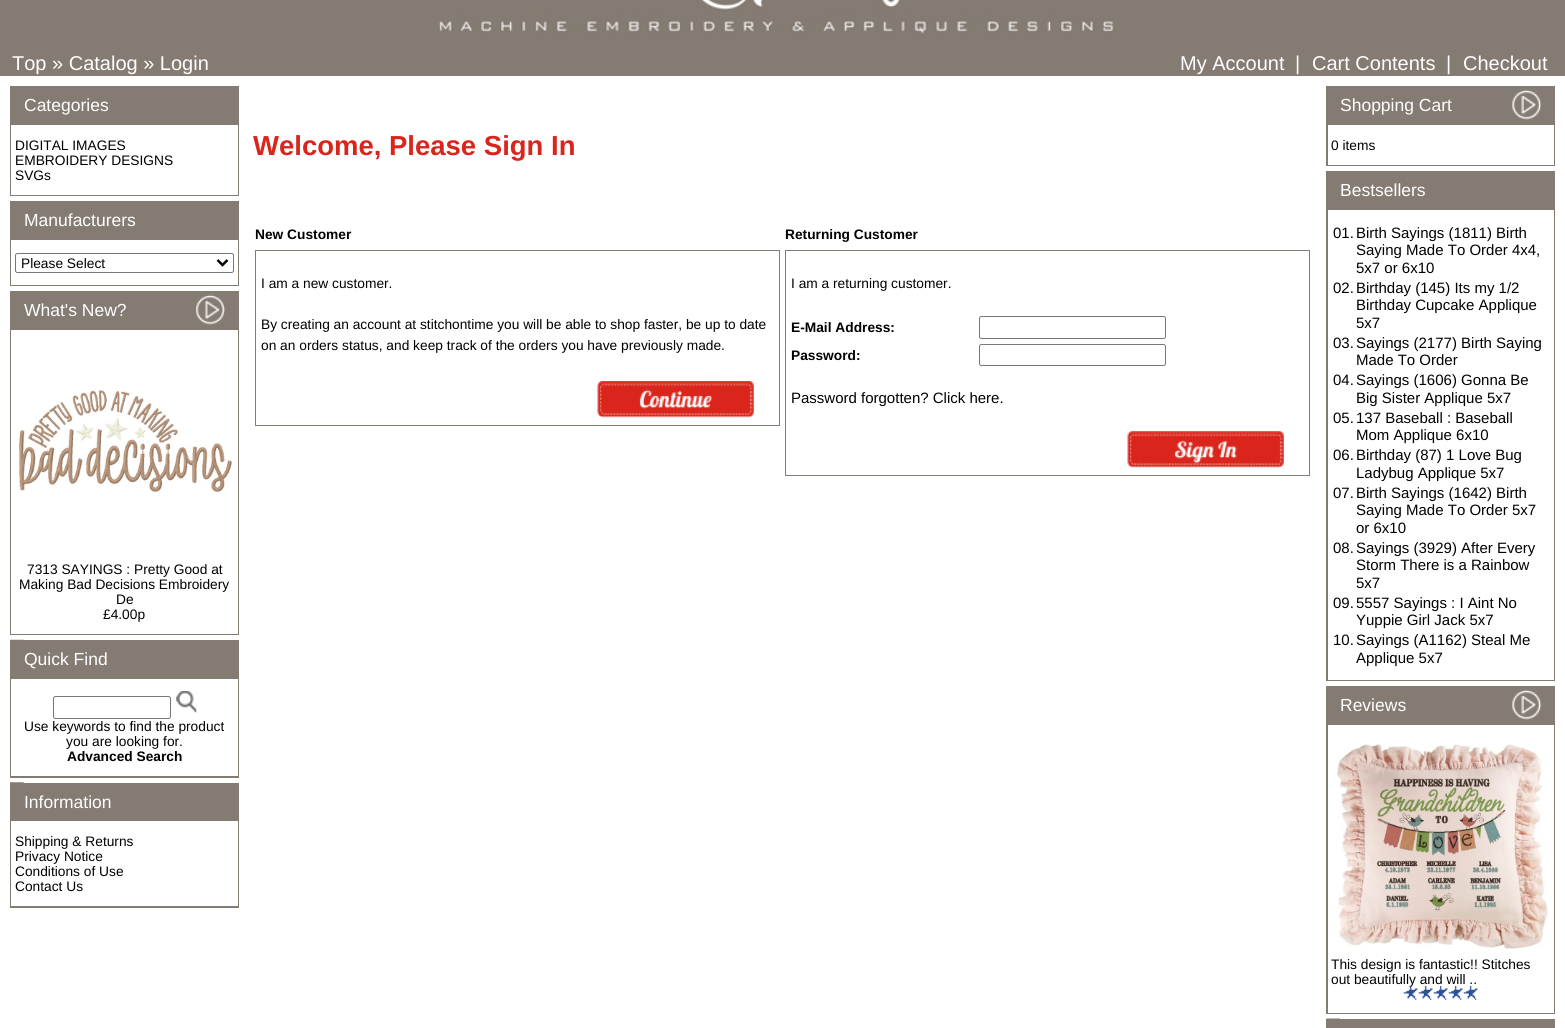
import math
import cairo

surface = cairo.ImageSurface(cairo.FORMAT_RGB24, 1565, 1028)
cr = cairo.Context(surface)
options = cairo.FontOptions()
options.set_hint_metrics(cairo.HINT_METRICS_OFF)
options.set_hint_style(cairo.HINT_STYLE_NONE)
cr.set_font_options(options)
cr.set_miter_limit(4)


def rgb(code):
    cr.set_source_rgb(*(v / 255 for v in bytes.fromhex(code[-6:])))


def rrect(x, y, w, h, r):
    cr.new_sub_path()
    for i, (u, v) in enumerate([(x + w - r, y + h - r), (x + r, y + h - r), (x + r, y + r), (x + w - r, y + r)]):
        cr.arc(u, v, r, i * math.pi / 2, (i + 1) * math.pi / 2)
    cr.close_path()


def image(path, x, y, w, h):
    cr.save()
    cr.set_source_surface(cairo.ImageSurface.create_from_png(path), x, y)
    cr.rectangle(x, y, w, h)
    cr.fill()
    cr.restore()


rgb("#ffffff")
cr.paint()
rgb("#847b72")
cr.rectangle(0, 0, 1565, 51)
cr.fill()
image("img/1.png", 439, 0, 675, 34)
for x, y, w, h, color in [
    (0, 51, 1565, 25, "#847b72"),
    (10, 86, 229, 110, "#847b72"),
    (11, 125, 227, 70, "#ffffff"),
    (10, 201, 229, 85, "#847b72"),
    (11, 240, 227, 45, "#ffffff"),
]:
    rgb(color)
    cr.rectangle(x, y, w, h)
    cr.fill()
rrect(15.5, 253.5, 218, 19, 2)
rgb("#767676")
cr.set_line_width(1)
cr.stroke()
cr.new_path()
cr.move_to(217.5, 260)
cr.line_to(222.5, 265)
cr.line_to(227.5, 260)
rgb("#000000")
cr.set_line_width(2.5)
cr.stroke()
rgb("#847b72")
cr.rectangle(10, 291, 229, 344)
cr.fill()
image("img/2.png", 195, 294, 30, 31)
rgb("#ffffff")
cr.rectangle(11, 330, 227, 304)
cr.fill()
image("img/3.png", 18, 390, 214, 103)
rgb("#847b72")
cr.rectangle(10, 640, 229, 138)
cr.fill()
image("img/4.png", 10, 639, 14, 1)
rgb("#ffffff")
cr.rectangle(11, 679, 227, 97)
cr.fill()
rrect(53.5, 696.5, 117, 22, 2)
rgb("#767676")
cr.set_line_width(1)
cr.stroke()
image("img/5.png", 176, 691, 21, 22)
rgb("#847b72")
cr.rectangle(10, 783, 229, 125)
cr.fill()
image("img/6.png", 10, 782, 14, 1)
for x, y, w, h, color in [
    (11, 821, 227, 85, "#ffffff"),
    (255, 250, 525, 176, "#847b72"),
    (256, 251, 523, 174, "#ffffff"),
]:
    rgb(color)
    cr.rectangle(x, y, w, h)
    cr.fill()
image("img/7.png", 597, 381, 157, 37)
rgb("#847b72")
cr.rectangle(785, 250, 525, 226)
cr.fill()
rgb("#ffffff")
cr.rectangle(786, 251, 523, 224)
cr.fill()
rrect(979.5, 316.5, 186, 22, 2)
rgb("#767676")
cr.stroke()
rrect(979.5, 344.5, 186, 21, 2)
cr.stroke()
image("img/8.png", 1127, 431, 157, 37)
rgb("#847b72")
cr.rectangle(1326, 86, 229, 80)
cr.fill()
image("img/9.png", 1511, 89, 31, 31)
cr.set_source_rgba(0.514, 0.478, 0.443, 0.75)
cr.rectangle(1541, 102, 1, 5)
cr.fill()
rgb("#ffffff")
cr.rectangle(1328, 125, 226, 40)
cr.fill()
rgb("#847b72")
cr.rectangle(1326, 171, 229, 510)
cr.fill()
rgb("#ffffff")
cr.rectangle(1328, 210, 226, 470)
cr.fill()
rgb("#847b72")
cr.rectangle(1326, 686, 229, 328)
cr.fill()
image("img/9.png", 1511, 689, 31, 31)
rgb("#ffffff")
cr.rectangle(1328, 725, 226, 288)
cr.fill()
image("img/10.png", 1337, 744, 211, 205)
rgb("#847b72")
cr.rectangle(1326, 1019, 229, 9)
cr.fill()
image("img/12.png", 1326, 1018, 14, 1)
cr.select_font_face("Liberation Sans")
cr.set_font_size(20)
rgb("#ffffff")
for x, y, s in [
    (12, 70, "Top » Catalog » Login"),
    (1180, 70, "My Account"),
    (1295, 70, "|"),
    (1312, 70, "Cart Contents"),
    (1446, 70, "|"),
    (1463, 70, "Checkout"),
]:
    cr.move_to(x, y)
    cr.show_text(s)
cr.set_font_size(17.5)
cr.move_to(24, 111)
cr.show_text("Categories")
cr.set_font_size(13.75)
rgb("#000000")
for x, y, s in [
    (15, 150, "DIGITAL IMAGES"),
    (15, 165, "EMBROIDERY DESIGNS"),
    (15, 180, "SVGs"),
]:
    cr.move_to(x, y)
    cr.show_text(s)
cr.set_font_size(17.5)
rgb("#ffffff")
cr.move_to(24, 226)
cr.show_text("Manufacturers")
cr.set_font_size(13.75)
rgb("#000000")
cr.move_to(21, 268)
cr.show_text("Please Select")
cr.set_font_size(17.5)
rgb("#ffffff")
cr.move_to(24, 316)
cr.show_text("What's New?")
cr.set_font_size(13.75)
rgb("#000000")
for x, y, s in [
    (27, 574, "7313 SAYINGS : Pretty Good at"),
    (19, 589, "Making Bad Decisions Embroidery"),
    (116, 604, "De"),
    (103, 619, "£4.00p"),
]:
    cr.move_to(x, y)
    cr.show_text(s)
cr.set_font_size(17.5)
rgb("#ffffff")
cr.move_to(24, 665)
cr.show_text("Quick Find")
cr.set_font_size(13.75)
rgb("#000000")
cr.move_to(24, 731)
cr.show_text("Use keywords to find the product")
cr.move_to(66, 746)
cr.show_text("you are looking for.")
cr.select_font_face("Liberation Sans", cairo.FONT_SLANT_NORMAL, cairo.FONT_WEIGHT_BOLD)
cr.move_to(67, 761)
cr.show_text("Advanced Search")
cr.select_font_face("Liberation Sans")
cr.set_font_size(17.5)
rgb("#ffffff")
cr.move_to(24, 808)
cr.show_text("Information")
cr.set_font_size(13.75)
rgb("#000000")
for x, y, s in [
    (15, 846, "Shipping & Returns"),
    (15, 861, "Privacy Notice"),
    (15, 876, "Conditions of Use"),
    (15, 891, "Contact Us"),
]:
    cr.move_to(x, y)
    cr.show_text(s)
cr.select_font_face("Liberation Sans", cairo.FONT_SLANT_NORMAL, cairo.FONT_WEIGHT_BOLD)
cr.set_font_size(27.5)
rgb("#da251c")
cr.move_to(253, 155)
cr.show_text("Welcome, Please Sign In")
cr.set_font_size(13.75)
rgb("#000000")
cr.move_to(255, 239)
cr.show_text("New Customer")
cr.move_to(785, 239)
cr.show_text("Returning Customer")
cr.select_font_face("Liberation Sans")
for x, y, s in [
    (261, 288, "I am a new customer."),
    (261, 329, "By creating an account at stitchontime you will be able to shop faster, be up to date"),
    (261, 350, "on an orders status, and keep track of the orders you have previously made."),
    (791, 288, "I am a returning customer."),
]:
    cr.move_to(x, y)
    cr.show_text(s)
cr.select_font_face("Liberation Sans", cairo.FONT_SLANT_NORMAL, cairo.FONT_WEIGHT_BOLD)
cr.move_to(791, 332)
cr.show_text("E-Mail Address:")
cr.move_to(791, 360)
cr.show_text("Password:")
cr.select_font_face("Liberation Sans")
cr.set_font_size(15)
cr.move_to(791, 403)
cr.show_text("Password forgotten? Click here.")
cr.set_font_size(17.5)
rgb("#ffffff")
cr.move_to(1340, 111)
cr.show_text("Shopping Cart")
cr.set_font_size(13.75)
rgb("#000000")
cr.move_to(1331, 150)
cr.show_text("0 items")
cr.set_font_size(17.5)
rgb("#ffffff")
cr.move_to(1340, 196)
cr.show_text("Bestsellers")
cr.set_font_size(15)
rgb("#000000")
for x, y, s in [
    (1333, 238, "01."),
    (1356, 238, "Birth Sayings (1811) Birth"),
    (1356, 255, "Saying Made To Order 4x4,"),
    (1356, 273, "5x7 or 6x10"),
    (1333, 293, "02."),
    (1356, 293, "Birthday (145) Its my 1/2"),
    (1356, 310, "Birthday Cupcake Applique"),
    (1356, 328, "5x7"),
    (1333, 348, "03."),
    (1356, 348, "Sayings (2177) Birth Saying"),
    (1356, 365, "Made To Order"),
    (1333, 385, "04."),
    (1356, 385, "Sayings (1606) Gonna Be"),
    (1356, 403, "Big Sister Applique 5x7"),
    (1333, 423, "05."),
    (1356, 423, "137 Baseball : Baseball"),
    (1356, 440, "Mom Applique 6x10"),
    (1333, 460, "06."),
    (1356, 460, "Birthday (87) 1 Love Bug"),
    (1356, 478, "Ladybug Applique 5x7"),
    (1333, 498, "07."),
    (1356, 498, "Birth Sayings (1642) Birth"),
    (1356, 515, "Saying Made To Order 5x7"),
    (1356, 533, "or 6x10"),
    (1333, 553, "08."),
    (1356, 553, "Sayings (3929) After Every"),
    (1356, 570, "Storm There is a Rainbow"),
    (1356, 588, "5x7"),
    (1333, 608, "09."),
    (1356, 608, "5557 Sayings : I Aint No"),
    (1356, 625, "Yuppie Girl Jack 5x7"),
    (1333, 645, "10."),
    (1356, 645, "Sayings (A1162) Steal Me"),
    (1356, 663, "Applique 5x7"),
]:
    cr.move_to(x, y)
    cr.show_text(s)
cr.set_font_size(17.5)
rgb("#ffffff")
cr.move_to(1340, 711)
cr.show_text("Reviews")
cr.set_font_size(13.75)
rgb("#000000")
cr.move_to(1331, 969)
cr.show_text("This design is fantastic!! Stitches")
cr.move_to(1331, 984)
cr.show_text("out beautifully and will ..")
image("img/11.png", 1403, 986, 75, 14)
surface.write_to_png("page.png")
